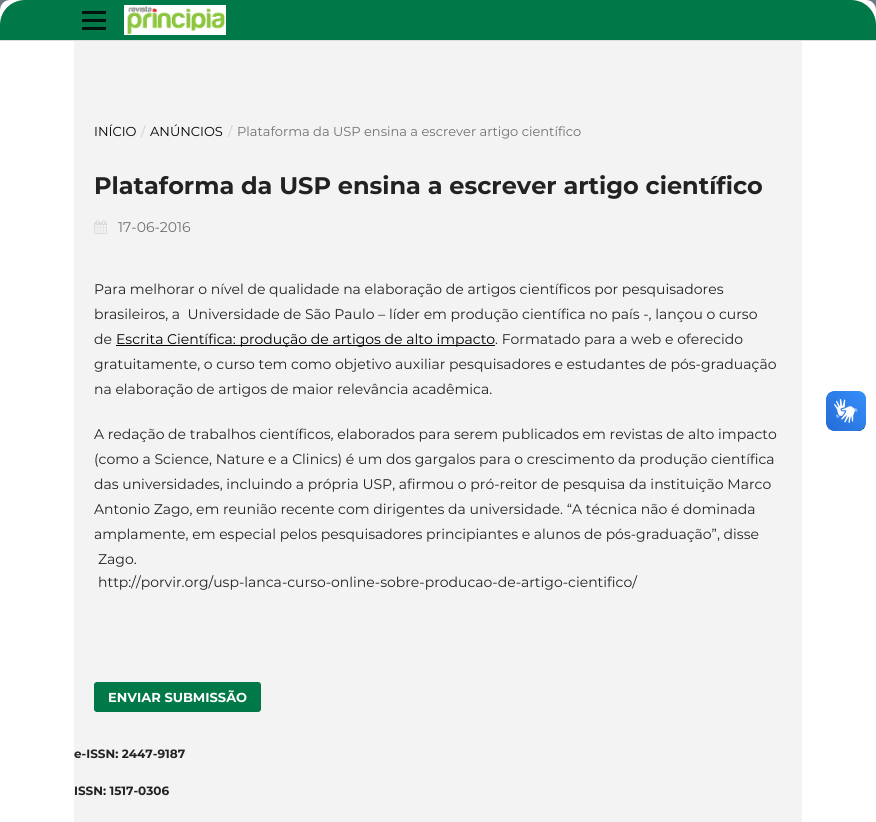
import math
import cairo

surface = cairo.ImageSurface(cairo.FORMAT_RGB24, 876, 822)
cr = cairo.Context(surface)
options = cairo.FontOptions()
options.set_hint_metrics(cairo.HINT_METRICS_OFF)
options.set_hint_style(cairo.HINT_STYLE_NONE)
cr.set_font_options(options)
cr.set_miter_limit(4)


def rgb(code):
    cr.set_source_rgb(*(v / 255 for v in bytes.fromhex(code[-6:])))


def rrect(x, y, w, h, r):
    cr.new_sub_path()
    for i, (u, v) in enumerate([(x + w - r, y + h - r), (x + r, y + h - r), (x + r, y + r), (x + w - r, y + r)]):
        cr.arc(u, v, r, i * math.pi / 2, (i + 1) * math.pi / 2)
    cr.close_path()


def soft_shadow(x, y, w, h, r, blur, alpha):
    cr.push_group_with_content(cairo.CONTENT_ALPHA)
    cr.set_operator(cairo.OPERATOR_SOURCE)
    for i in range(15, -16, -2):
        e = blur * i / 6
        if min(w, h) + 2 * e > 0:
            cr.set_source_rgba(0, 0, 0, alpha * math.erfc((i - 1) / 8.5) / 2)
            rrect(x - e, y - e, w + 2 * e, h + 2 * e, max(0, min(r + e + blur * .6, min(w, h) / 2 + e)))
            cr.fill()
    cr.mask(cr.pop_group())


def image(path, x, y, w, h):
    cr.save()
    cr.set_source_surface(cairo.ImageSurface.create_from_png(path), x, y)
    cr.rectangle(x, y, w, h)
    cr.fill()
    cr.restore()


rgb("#6e7a86")
cr.paint()
rgb("#222222")
soft_shadow(0, 3, 876, 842, 15, 2.5, 1)
rgb("#ffffff")
cr.new_path()
cr.move_to(10, 0)
cr.line_to(866, 0)
cr.curve_to(871.5, 0, 876, 4.5, 876, 10)
cr.line_to(876, 822)
cr.curve_to(876, 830.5, 869.5, 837, 861, 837)
cr.line_to(15, 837)
cr.curve_to(6.5, 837, 0, 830.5, 0, 822)
cr.line_to(0, 10)
cr.curve_to(0, 4.5, 4.5, 0, 10, 0)
cr.close_path()
cr.fill()
rgb("#007848")
cr.new_path()
cr.move_to(25, 0)
cr.line_to(851, 0)
cr.curve_to(865, 0, 876, 11, 876, 25)
cr.line_to(876, 41)
cr.line_to(0, 41)
cr.line_to(0, 25)
cr.curve_to(0, 11, 11, 0, 25, 0)
cr.close_path()
cr.fill()
for x, y, w, h, color in [
    (0, 40, 876, 1, "#dddddd"),
    (82, 27, 24, 3, "#00130c"),
    (82, 11, 24, 3, "#00130c"),
    (82, 19, 24, 3, "#00130c"),
]:
    rgb(color)
    cr.rectangle(x, y, w, h)
    cr.fill()
image("img/1.png", 124, 5, 102, 30)
rgb("#f3f3f3")
cr.rectangle(74, 41, 728, 781)
cr.fill()
image("img/2.png", 94, 220, 13, 14)
rgb("#000000")
cr.rectangle(116, 345, 379, 1)
cr.fill()
rgb("#007848")
rrect(94.5, 682.5, 166, 29, 2.5)
cr.fill_preserve()
cr.set_line_width(1)
cr.stroke()
image("img/3.png", 826, 391, 40, 40)
image("img/4.png", 826, 391, 40, 40)
cr.select_font_face("Montserrat")
cr.set_font_size(13)
rgb("#000000")
cr.move_to(94, 136)
cr.show_text("INÍCIO")
rgb("#cccccc")
cr.move_to(141, 136)
cr.show_text("/")
rgb("#000000")
cr.move_to(150, 136)
cr.show_text("ANÚNCIOS")
rgb("#cccccc")
cr.move_to(228, 136)
cr.show_text("/")
rgb("#707070")
cr.move_to(237, 136)
cr.show_text("Plataforma da USP ensina a escrever artigo científico")
cr.select_font_face("Montserrat", cairo.FONT_SLANT_NORMAL, cairo.FONT_WEIGHT_BOLD)
cr.set_font_size(24)
rgb("#222222")
cr.move_to(94, 194)
cr.show_text("Plataforma da USP ensina a escrever artigo científico")
cr.select_font_face("Montserrat")
cr.set_font_size(14)
rgb("#707070")
cr.move_to(118, 232)
cr.show_text("17-06-2016")
rgb("#222222")
for x, y, s in [
    (94, 294, "Para melhorar o nível de qualidade na elaboração de artigos científicos por pesquisadores"),
    (94, 319, "brasileiros, a  Universidade de São Paulo – líder em produção científica no país -, lançou o curso"),
    (94, 344, "de"),
]:
    cr.move_to(x, y)
    cr.show_text(s)
rgb("#000000")
cr.move_to(116, 344)
cr.show_text("Escrita Científica: produção de artigos de alto impacto")
rgb("#222222")
for x, y, s in [
    (495, 344, ". Formatado para a web e oferecido"),
    (94, 369, "gratuitamente, o curso tem como objetivo auxiliar pesquisadores e estudantes de pós-graduação"),
    (94, 394, "na elaboração de artigos de maior relevância acadêmica."),
    (94, 439, "A redação de trabalhos científicos, elaborados para serem publicados em revistas de alto impacto"),
    (94, 464, "(como a Science, Nature e a Clinics) é um dos gargalos para o crescimento da produção científica"),
    (94, 489, "das universidades, incluindo a própria USP, afirmou o pró-reitor de pesquisa da instituição Marco"),
    (94, 514, "Antonio Zago, em reunião recente com dirigentes da universidade. “A técnica não é dominada"),
    (94, 539, "amplamente, em especial pelos pesquisadores principiantes e alunos de pós-graduação”, disse"),
    (98, 564, "Zago."),
    (98, 587, "http://porvir.org/usp-lanca-curso-online-sobre-producao-de-artigo-cientifico/"),
]:
    cr.move_to(x, y)
    cr.show_text(s)
cr.select_font_face("Montserrat", cairo.FONT_SLANT_NORMAL, cairo.FONT_WEIGHT_BOLD)
cr.set_font_size(13)
rgb("#ffffff")
cr.move_to(108, 702)
cr.show_text("ENVIAR SUBMISSÃO")
cr.set_font_size(12)
rgb("#222222")
cr.move_to(74, 758)
cr.show_text("e-ISSN: 2447-9187")
cr.move_to(74, 795)
cr.show_text("ISSN: 1517-0306")
surface.write_to_png("page.png")
